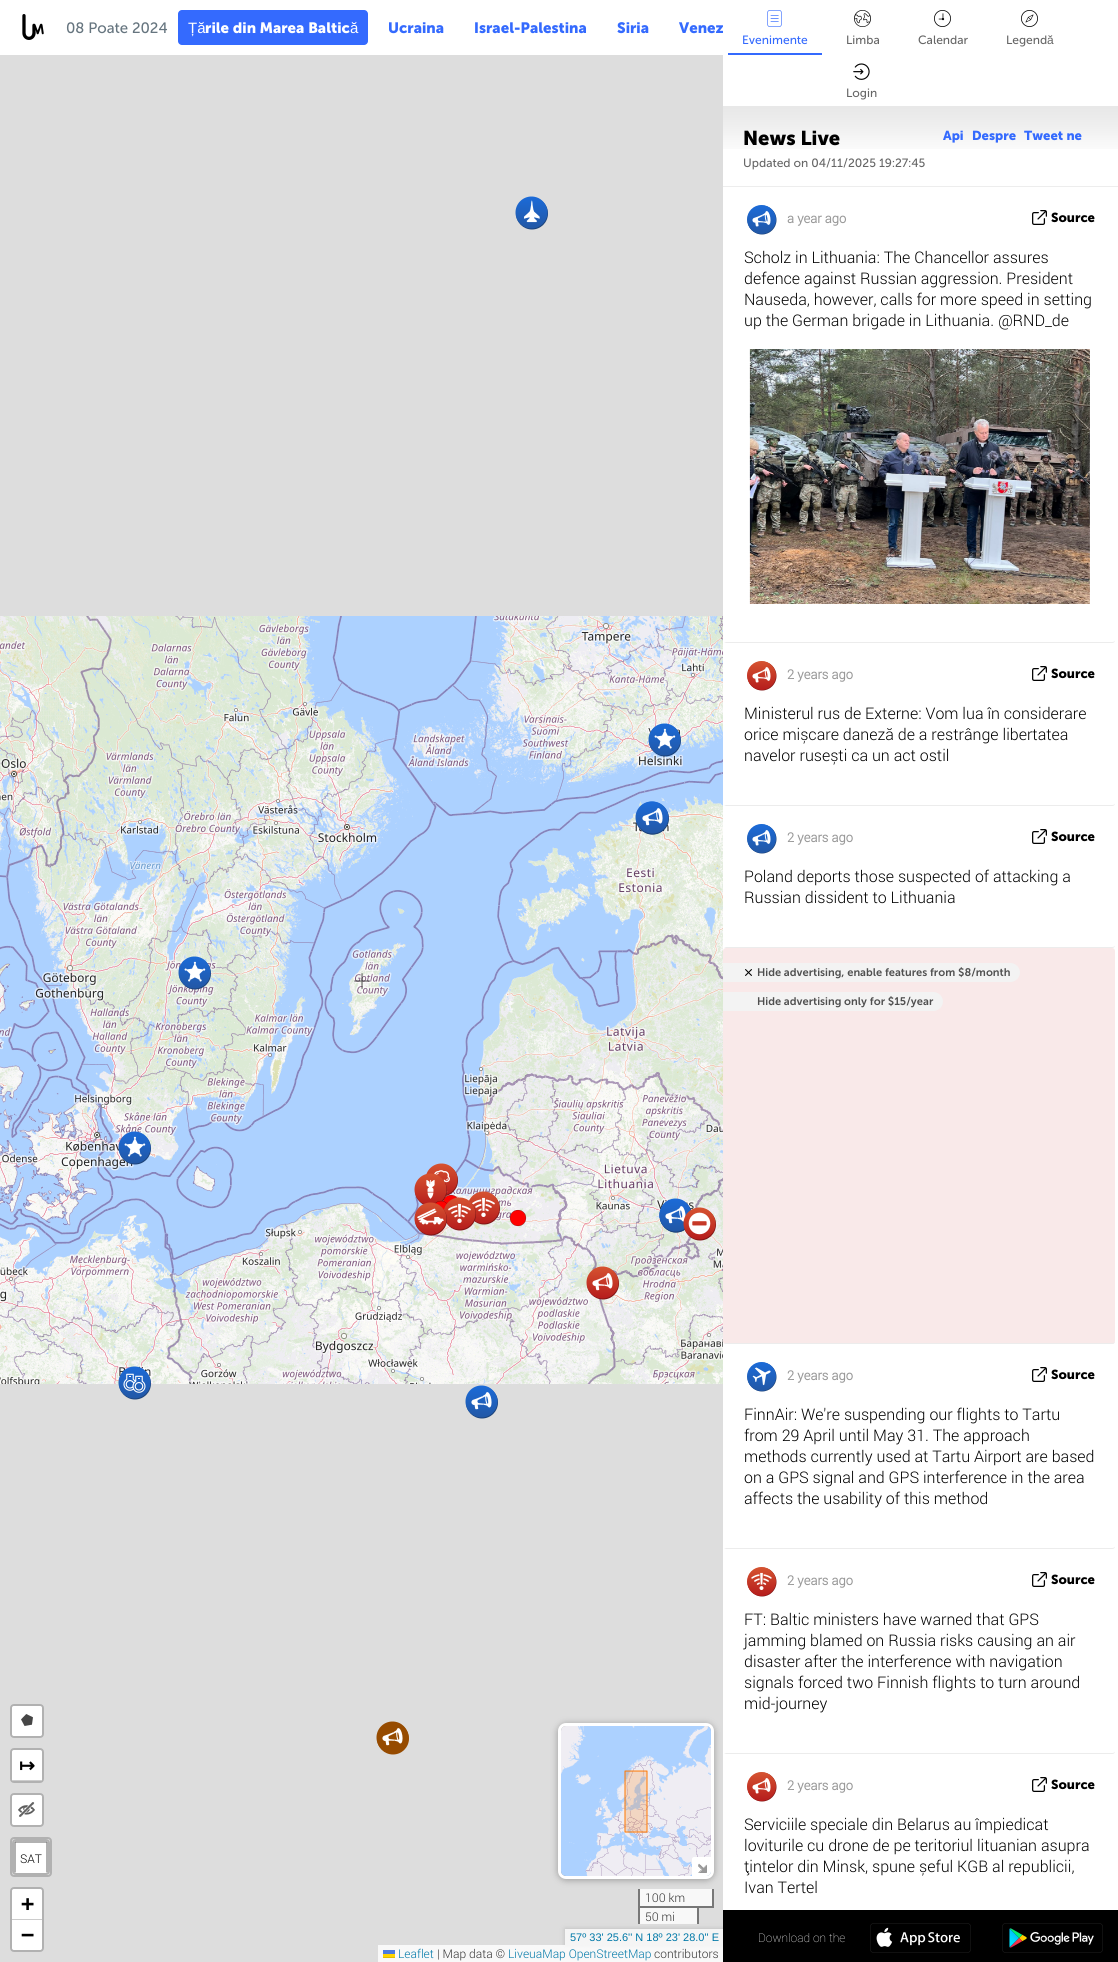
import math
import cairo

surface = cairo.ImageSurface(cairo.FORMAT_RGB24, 1118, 1962)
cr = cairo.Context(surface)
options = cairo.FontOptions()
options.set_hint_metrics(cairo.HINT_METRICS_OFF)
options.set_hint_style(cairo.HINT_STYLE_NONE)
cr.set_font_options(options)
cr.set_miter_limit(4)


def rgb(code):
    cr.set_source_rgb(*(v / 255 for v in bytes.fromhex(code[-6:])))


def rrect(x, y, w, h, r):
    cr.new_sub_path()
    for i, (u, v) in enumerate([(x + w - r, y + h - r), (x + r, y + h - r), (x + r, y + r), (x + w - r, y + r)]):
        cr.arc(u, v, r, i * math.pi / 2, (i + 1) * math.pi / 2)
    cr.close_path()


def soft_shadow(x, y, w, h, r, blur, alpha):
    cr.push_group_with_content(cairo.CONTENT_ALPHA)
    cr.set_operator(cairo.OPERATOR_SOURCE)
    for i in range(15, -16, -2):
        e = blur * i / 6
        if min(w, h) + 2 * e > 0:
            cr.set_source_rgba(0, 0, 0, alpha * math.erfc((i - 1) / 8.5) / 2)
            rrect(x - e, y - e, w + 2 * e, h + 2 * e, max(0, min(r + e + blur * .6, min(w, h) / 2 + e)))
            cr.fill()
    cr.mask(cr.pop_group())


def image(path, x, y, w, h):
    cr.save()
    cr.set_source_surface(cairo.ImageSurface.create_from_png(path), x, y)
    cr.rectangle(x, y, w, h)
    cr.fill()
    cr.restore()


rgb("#dddddd")
cr.paint()
rgb("#ffffff")
cr.rectangle(0, 0, 723, 55)
cr.fill()
image("img/1.png", 22, 14, 22, 26)
rgb("#346afe")
rrect(178, 10, 190, 35, 4)
cr.fill()
rgb("#f8f8f8")
cr.rectangle(640, 1908, 57, 16)
cr.fill()
image("img/2.png", 515, 196, 33, 34)
image("img/24.png", 549, 616, 174, 256)
image("img/3.png", 648, 723, 33, 34)
image("img/4.png", 635, 801, 31, 34)
image("img/5.png", 637, 801, 32, 34)
image("img/26.png", 37, 872, 256, 256)
image("img/6.png", 178, 956, 33, 34)
image("img/30.png", 37, 1128, 256, 256)
image("img/7.png", 118, 1131, 33, 34)
image("img/31.png", 293, 1128, 256, 256)
image("img/8.png", 426, 1163, 32, 34)
image("img/9.png", 414, 1173, 33, 32)
rgb("#ff0000")
cr.arc(451, 1203, 8, 0, 2 * math.pi)
cr.fill_preserve()
rgb("#000000")
cr.set_line_width(0.2)
cr.stroke()
image("img/10.png", 469, 1191, 31, 34)
cr.arc(453, 1209, 8, 0, 2 * math.pi)
cr.stroke()
rgb("#ff0000")
cr.arc(441, 1209, 8, 0, 2 * math.pi)
cr.fill_preserve()
rgb("#000000")
cr.stroke()
image("img/11.png", 443, 1197, 33, 34)
image("img/32.png", 549, 1128, 174, 256)
image("img/12.png", 659, 1198, 32, 33)
image("img/13.png", 414, 1202, 33, 34)
image("img/14.png", 659, 1204, 32, 29)
rgb("#ff0000")
cr.arc(518, 1218, 8, 0, 2 * math.pi)
cr.fill_preserve()
rgb("#000000")
cr.stroke()
image("img/15.png", 659, 1207, 32, 26)
image("img/16.png", 683, 1207, 33, 34)
image("img/17.png", 586, 1266, 33, 34)
image("img/18.png", 118, 1366, 33, 34)
image("img/19.png", 465, 1385, 33, 34)
image("img/20.png", 376, 1721, 33, 34)
image("img/21.png", 0, 616, 37, 256)
image("img/22.png", 37, 616, 256, 256)
image("img/23.png", 293, 616, 256, 256)
image("img/25.png", 0, 872, 37, 256)
image("img/27.png", 293, 872, 256, 256)
image("img/28.png", 549, 872, 174, 256)
image("img/29.png", 0, 1128, 37, 256)
image("img/33.png", 354, 973, 16, 16)
rrect(11, 1705, 32, 32, 3)
rgb("#b1b1b1")
cr.set_line_width(2)
cr.stroke()
rgb("#ffffff")
rrect(12, 1706, 30, 30, 2)
cr.fill()
image("img/34.png", 21, 1714, 12, 12)
rrect(11, 1749, 32, 33, 3)
rgb("#b1b1b1")
cr.stroke()
rgb("#ffffff")
cr.new_path()
cr.move_to(14, 1750)
cr.line_to(40, 1750)
cr.curve_to(41, 1750, 42, 1751, 42, 1752)
cr.line_to(42, 1781)
cr.line_to(12, 1781)
cr.line_to(12, 1752)
cr.curve_to(12, 1751, 13, 1750, 14, 1750)
cr.close_path()
cr.fill()
rgb("#cccccc")
cr.rectangle(12, 1780, 30, 1)
cr.fill()
rrect(11, 1794, 32, 32, 3)
rgb("#b1b1b1")
cr.stroke()
rgb("#ffffff")
rrect(12, 1795, 30, 30, 2)
cr.fill()
image("img/35.png", 18, 1802, 17, 15)
rrect(11, 1838, 40, 38, 3)
rgb("#b1b1b1")
cr.stroke()
rrect(13, 1840, 36, 34, 3)
cr.stroke()
rgb("#ffffff")
cr.new_path()
cr.move_to(16, 1843)
cr.line_to(46, 1843)
cr.line_to(46, 1873)
cr.line_to(16, 1873)
cr.line_to(16, 1871)
cr.close_path()
cr.fill()
cr.set_source_rgba(0, 0, 0, 0.2)
cr.rectangle(15, 1841, 32, 2)
cr.fill()
cr.rectangle(46, 1842, 2, 30)
cr.fill()
cr.rectangle(14, 1842, 2, 30)
cr.fill()
rrect(11, 1888, 32, 63, 3)
rgb("#b1b1b1")
cr.stroke()
rgb("#ffffff")
cr.new_path()
cr.move_to(14, 1889)
cr.line_to(40, 1889)
cr.curve_to(41, 1889, 42, 1890, 42, 1891)
cr.line_to(42, 1920)
cr.line_to(12, 1920)
cr.line_to(12, 1891)
cr.curve_to(12, 1890, 13, 1889, 14, 1889)
cr.close_path()
cr.fill()
rgb("#cccccc")
cr.rectangle(12, 1919, 30, 1)
cr.fill()
rgb("#ffffff")
cr.new_path()
cr.move_to(12, 1920)
cr.line_to(42, 1920)
cr.line_to(42, 1948)
cr.curve_to(42, 1949, 41, 1950, 40, 1950)
cr.line_to(14, 1950)
cr.curve_to(13, 1950, 12, 1949, 12, 1948)
cr.close_path()
cr.fill()
rgb("#999999")
soft_shadow(558, 1724, 156, 156, 8, 3.5, 1)
rrect(559.5, 1724.5, 153, 153, 6.5)
rgb("#ffffff")
cr.set_line_width(3)
cr.stroke()
image("img/36.png", 561, 1726, 49, 150)
image("img/37.png", 610, 1726, 101, 150)
cr.set_source_rgba(1, 0.471, 0, 0.2)
cr.rectangle(625, 1771, 22, 61)
cr.fill()
cr.new_path()
cr.move_to(625, 1832)
cr.line_to(625, 1771)
cr.line_to(647, 1771)
cr.line_to(647, 1832)
cr.close_path()
rgb("#ff7800")
cr.set_line_width(1)
cr.set_line_cap(cairo.LINE_CAP_ROUND)
cr.set_line_join(cairo.LINE_JOIN_ROUND)
cr.stroke()
rgb("#ffffff")
cr.new_path()
cr.move_to(694, 1857)
cr.line_to(711, 1857)
cr.line_to(711, 1871)
cr.curve_to(711, 1874, 709, 1876, 706, 1876)
cr.line_to(692, 1876)
cr.line_to(692, 1859)
cr.curve_to(692, 1858, 693, 1857, 694, 1857)
cr.close_path()
cr.fill()
image("img/38.png", 698, 1863, 9, 10)
for x, y, w, h, color in [
    (640, 1889, 72, 17, "#f8f8f8"),
    (712, 1889, 2, 19, "#777777"),
    (699, 1906, 15, 2, "#777777"),
    (638, 1889, 2, 19, "#777777"),
    (638, 1906, 61, 2, "#777777"),
    (697, 1906, 2, 18, "#777777"),
    (638, 1906, 2, 18, "#777777"),
]:
    rgb(color)
    cr.rectangle(x, y, w, h)
    cr.fill()
rgb("#bbbbbb")
soft_shadow(565, 1929, 159, 16, 0, 2.5, 1)
rgb("#f5f5f5")
cr.rectangle(565, 1929, 158, 16)
cr.fill()
cr.set_source_rgba(1, 1, 1, 0.8)
cr.rectangle(378, 1945, 345, 17)
cr.fill()
rgb("#4c7be1")
cr.rectangle(383, 1950, 12, 4)
cr.fill()
rgb("#ffd500")
cr.rectangle(383, 1954, 12, 3)
cr.fill()
rgb("#e0bc00")
cr.rectangle(383, 1957, 12, 1)
cr.fill()
rgb("#000000")
cr.rectangle(723, 1910, 395, 52)
cr.fill()
image("img/52.png", 870, 1923, 101, 30)
image("img/53.png", 1002, 1923, 101, 30)
cr.select_font_face("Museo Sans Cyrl")
cr.set_font_size(15)
rgb("#66757f")
cr.move_to(66, 33)
cr.show_text("08 Poate 2024")
cr.select_font_face("Liberation Sans")
rgb("#ffffff")
cr.move_to(188, 33)
cr.show_text("Ță")
cr.select_font_face("Museo Sans Cyrl", cairo.FONT_SLANT_NORMAL, cairo.FONT_WEIGHT_BOLD)
cr.move_to(205, 33)
cr.show_text("rile din Marea Baltic")
cr.select_font_face("Liberation Sans")
cr.move_to(350, 33)
cr.show_text("ă")
cr.select_font_face("Museo Sans Cyrl", cairo.FONT_SLANT_NORMAL, cairo.FONT_WEIGHT_BOLD)
rgb("#346afe")
for x, y, s in [
    (388, 33, "Ucraina"),
    (474, 33, "Israel-Palestina"),
    (617, 33, "Siria"),
    (679, 33, "Venez"),
]:
    cr.move_to(x, y)
    cr.show_text(s)
cr.select_font_face("DejaVu Sans", cairo.FONT_SLANT_NORMAL, cairo.FONT_WEIGHT_BOLD)
cr.set_font_size(19)
rgb("#000000")
cr.move_to(19, 1772)
cr.show_text("↦")
cr.select_font_face("Roboto Light")
cr.set_font_size(12)
cr.move_to(20, 1863)
cr.show_text("SAT")
cr.select_font_face("DejaVu Sans Mono", cairo.FONT_SLANT_NORMAL, cairo.FONT_WEIGHT_BOLD)
cr.set_font_size(22)
cr.move_to(21, 1911)
cr.show_text("+")
cr.move_to(21, 1942)
cr.show_text("−")
cr.select_font_face("Roboto Light")
cr.set_font_size(12)
rgb("#333333")
cr.move_to(645, 1902)
cr.show_text("100 km")
cr.move_to(645, 1921)
cr.show_text("50 mi")
cr.select_font_face("Liberation Sans")
cr.set_font_size(11)
rgb("#0078a8")
cr.move_to(570, 1941)
cr.show_text("57º 33' 25.6'' N 18º 23' 28.0'' E")
cr.select_font_face("Roboto Light")
cr.set_font_size(12)
cr.move_to(398, 1958)
cr.show_text("Leaflet")
rgb("#333333")
cr.move_to(437, 1958)
cr.show_text("| Map data ©")
rgb("#0078a8")
cr.move_to(508, 1958)
cr.show_text("LiveuaMap OpenStreetMap")
rgb("#333333")
cr.move_to(654, 1958)
cr.show_text("contributors")
rgb("#ffffff")
cr.rectangle(723, 0, 395, 1910)
cr.fill()
rgb("#346afe")
cr.rectangle(728, 53, 94, 2)
cr.fill()
image("img/39.png", 767, 10, 15, 17)
cr.select_font_face("Museo Sans Cyrl")
cr.move_to(742, 44)
cr.show_text("Evenimente")
image("img/40.png", 854, 10, 17, 17)
rgb("#666666")
cr.move_to(846, 44)
cr.show_text("Limba")
image("img/41.png", 934, 10, 17, 17)
cr.move_to(918, 44)
cr.show_text("Calendar")
image("img/42.png", 1021, 10, 17, 17)
cr.move_to(1006, 44)
cr.show_text("Legend")
cr.select_font_face("Liberation Sans")
cr.move_to(1047, 44)
cr.show_text("ă")
image("img/43.png", 853, 63, 17, 17)
cr.select_font_face("Museo Sans Cyrl")
cr.move_to(846, 97)
cr.show_text("Login")
image("img/44.png", 723, 106, 395, 43)
rgb("#ededed")
cr.rectangle(723, 186, 395, 1)
cr.fill()
cr.select_font_face("Museo Sans Cyrl", cairo.FONT_SLANT_NORMAL, cairo.FONT_WEIGHT_BOLD)
cr.set_font_size(20)
rgb("#000000")
cr.move_to(743, 145)
cr.show_text("News Live")
cr.select_font_face("Museo Sans Cyrl")
cr.set_font_size(12)
rgb("#666666")
cr.move_to(743, 167)
cr.show_text("Updated on 04/11/2025 19:27:45")
cr.select_font_face("Museo Sans Cyrl", cairo.FONT_SLANT_NORMAL, cairo.FONT_WEIGHT_BOLD)
cr.set_font_size(13)
rgb("#346afe")
for x, y, s in [
    (943, 140, "Api"),
    (972, 140, "Despre"),
    (1024, 140, "Tweet ne"),
]:
    cr.move_to(x, y)
    cr.show_text(s)
rgb("#ececec")
cr.new_path()
cr.move_to(1112, 643)
cr.curve_to(1114, 643, 1115, 642, 1115, 640)
cr.curve_to(1115, 641, 1114, 642, 1112, 642)
cr.line_to(726, 642)
cr.line_to(724, 643)
cr.line_to(726, 643)
cr.close_path()
cr.fill()
image("img/45.png", 747, 205, 30, 30)
cr.select_font_face("Roboto", cairo.FONT_SLANT_NORMAL, cairo.FONT_WEIGHT_BOLD)
rgb("#999999")
cr.move_to(787, 223)
cr.show_text("a year ago")
image("img/46.png", 1032, 210, 15, 15)
cr.select_font_face("Museo Sans Cyrl", cairo.FONT_SLANT_NORMAL, cairo.FONT_WEIGHT_BOLD)
rgb("#000000")
cr.move_to(1051, 222)
cr.show_text("Source")
cr.select_font_face("Roboto Light")
cr.set_font_size(16)
for x, y, s in [
    (744, 263, "Scholz in Lithuania: The Chancellor assures"),
    (744, 284, "defence against Russian aggression. President"),
    (744, 305, "Nauseda, however, calls for more speed in setting"),
    (744, 326, "up the German brigade in Lithuania. @RND_de"),
]:
    cr.move_to(x, y)
    cr.show_text(s)
image("img/47.png", 749, 349, 341, 255)
rgb("#ececec")
cr.new_path()
cr.move_to(1112, 806)
cr.curve_to(1114, 806, 1115, 805, 1115, 803)
cr.curve_to(1115, 804, 1114, 805, 1112, 805)
cr.line_to(726, 805)
cr.line_to(724, 806)
cr.line_to(726, 806)
cr.close_path()
cr.fill()
image("img/48.png", 747, 661, 30, 30)
cr.select_font_face("Roboto", cairo.FONT_SLANT_NORMAL, cairo.FONT_WEIGHT_BOLD)
cr.set_font_size(13)
rgb("#999999")
cr.move_to(787, 679)
cr.show_text("2 years ago")
image("img/46.png", 1032, 666, 15, 15)
cr.select_font_face("Museo Sans Cyrl", cairo.FONT_SLANT_NORMAL, cairo.FONT_WEIGHT_BOLD)
rgb("#000000")
cr.move_to(1051, 678)
cr.show_text("Source")
cr.select_font_face("Roboto Light")
cr.set_font_size(16)
for x, y, s in [
    (744, 719, "Ministerul rus de Externe: Vom lua în considerare"),
    (744, 740, "orice mișcare daneză de a restrânge libertatea"),
    (744, 761, "navelor rusești ca un act ostil"),
]:
    cr.move_to(x, y)
    cr.show_text(s)
rgb("#ececec")
cr.new_path()
cr.move_to(1112, 948)
cr.curve_to(1114, 948, 1115, 947, 1115, 945)
cr.curve_to(1115, 946, 1114, 947, 1112, 947)
cr.line_to(726, 947)
cr.line_to(724, 948)
cr.line_to(726, 948)
cr.close_path()
cr.fill()
image("img/45.png", 747, 824, 30, 30)
cr.select_font_face("Roboto", cairo.FONT_SLANT_NORMAL, cairo.FONT_WEIGHT_BOLD)
cr.set_font_size(13)
rgb("#999999")
cr.move_to(787, 842)
cr.show_text("2 years ago")
image("img/46.png", 1032, 829, 15, 15)
cr.select_font_face("Museo Sans Cyrl", cairo.FONT_SLANT_NORMAL, cairo.FONT_WEIGHT_BOLD)
rgb("#000000")
cr.move_to(1051, 841)
cr.show_text("Source")
cr.select_font_face("Roboto Light")
cr.set_font_size(16)
cr.move_to(744, 882)
cr.show_text("Poland deports those suspected of attacking a")
cr.move_to(744, 903)
cr.show_text("Russian dissident to Lithuania")
rgb("#f9e9e9")
rrect(723, 948, 392, 396, 3)
cr.fill()
rgb("#ececec")
cr.new_path()
cr.move_to(1112, 1344)
cr.curve_to(1114, 1344, 1115, 1343, 1115, 1341)
cr.curve_to(1115, 1342, 1114, 1343, 1112, 1343)
cr.line_to(726, 1343)
cr.line_to(724, 1344)
cr.line_to(726, 1344)
cr.close_path()
cr.fill()
rgb("#f3f3f3")
cr.new_path()
cr.move_to(723, 963)
cr.line_to(1010.5, 963)
cr.curve_to(1015.5, 963, 1020, 967.5, 1020, 972.5)
cr.curve_to(1020, 977.5, 1015.5, 982, 1010.5, 982)
cr.line_to(723, 982)
cr.close_path()
cr.fill()
image("img/49.png", 745, 969, 7, 7)
cr.select_font_face("Museo Sans Cyrl SemiBold")
cr.set_font_size(11)
rgb("#505050")
cr.move_to(757, 976)
cr.show_text("Hide advertising, enable features from $8/month")
rgb("#f3f3f3")
cr.new_path()
cr.move_to(723, 992)
cr.line_to(933.5, 992)
cr.curve_to(938.5, 992, 943, 996.5, 943, 1001.5)
cr.curve_to(943, 1006.5, 938.5, 1011, 933.5, 1011)
cr.line_to(723, 1011)
cr.close_path()
cr.fill()
rgb("#505050")
cr.move_to(757, 1005)
cr.show_text("Hide advertising only for $15/year")
rgb("#ececec")
cr.new_path()
cr.move_to(1112, 1549)
cr.curve_to(1114, 1549, 1115, 1548, 1115, 1546)
cr.curve_to(1115, 1547, 1114, 1548, 1112, 1548)
cr.line_to(726, 1548)
cr.line_to(724, 1549)
cr.line_to(726, 1549)
cr.close_path()
cr.fill()
image("img/50.png", 747, 1362, 30, 30)
cr.select_font_face("Roboto", cairo.FONT_SLANT_NORMAL, cairo.FONT_WEIGHT_BOLD)
cr.set_font_size(13)
rgb("#999999")
cr.move_to(787, 1380)
cr.show_text("2 years ago")
image("img/46.png", 1032, 1367, 15, 15)
cr.select_font_face("Museo Sans Cyrl", cairo.FONT_SLANT_NORMAL, cairo.FONT_WEIGHT_BOLD)
rgb("#000000")
cr.move_to(1051, 1379)
cr.show_text("Source")
cr.select_font_face("Roboto Light")
cr.set_font_size(16)
for x, y, s in [
    (744, 1420, "FinnAir: We're suspending our flights to Tartu"),
    (744, 1441, "from 29 April until May 31. The approach"),
    (744, 1462, "methods currently used at Tartu Airport are based"),
    (744, 1483, "on a GPS signal and GPS interference in the area"),
    (744, 1504, "affects the usability of this method"),
]:
    cr.move_to(x, y)
    cr.show_text(s)
rgb("#ececec")
cr.new_path()
cr.move_to(1112, 1754)
cr.curve_to(1114, 1754, 1115, 1753, 1115, 1751)
cr.curve_to(1115, 1752, 1114, 1753, 1112, 1753)
cr.line_to(726, 1753)
cr.line_to(724, 1754)
cr.line_to(726, 1754)
cr.close_path()
cr.fill()
image("img/51.png", 747, 1567, 30, 30)
cr.select_font_face("Roboto", cairo.FONT_SLANT_NORMAL, cairo.FONT_WEIGHT_BOLD)
cr.set_font_size(13)
rgb("#999999")
cr.move_to(787, 1585)
cr.show_text("2 years ago")
image("img/46.png", 1032, 1572, 15, 15)
cr.select_font_face("Museo Sans Cyrl", cairo.FONT_SLANT_NORMAL, cairo.FONT_WEIGHT_BOLD)
rgb("#000000")
cr.move_to(1051, 1584)
cr.show_text("Source")
cr.select_font_face("Roboto Light")
cr.set_font_size(16)
for x, y, s in [
    (744, 1625, "FT: Baltic ministers have warned that GPS"),
    (744, 1646, "jamming blamed on Russia risks causing an air"),
    (744, 1667, "disaster after the interference with navigation"),
    (744, 1688, "signals forced two Finnish flights to turn around"),
    (744, 1709, "mid-journey"),
]:
    cr.move_to(x, y)
    cr.show_text(s)
image("img/48.png", 747, 1772, 30, 30)
cr.select_font_face("Roboto", cairo.FONT_SLANT_NORMAL, cairo.FONT_WEIGHT_BOLD)
cr.set_font_size(13)
rgb("#999999")
cr.move_to(787, 1790)
cr.show_text("2 years ago")
image("img/46.png", 1032, 1777, 15, 15)
cr.select_font_face("Museo Sans Cyrl", cairo.FONT_SLANT_NORMAL, cairo.FONT_WEIGHT_BOLD)
rgb("#000000")
cr.move_to(1051, 1789)
cr.show_text("Source")
cr.select_font_face("Roboto Light")
cr.set_font_size(16)
for x, y, s in [
    (744, 1830, "Serviciile speciale din Belarus au împiedicat"),
    (744, 1851, "loviturile cu drone de pe teritoriul lituanian asupra"),
    (744, 1872, "țintelor din Minsk, spune șeful KGB al republicii,"),
    (744, 1893, "Ivan Tertel"),
]:
    cr.move_to(x, y)
    cr.show_text(s)
cr.select_font_face("Roboto Thin")
cr.set_font_size(12)
rgb("#ffffff")
cr.move_to(758, 1942)
cr.show_text("Download on the")
surface.write_to_png("page.png")
